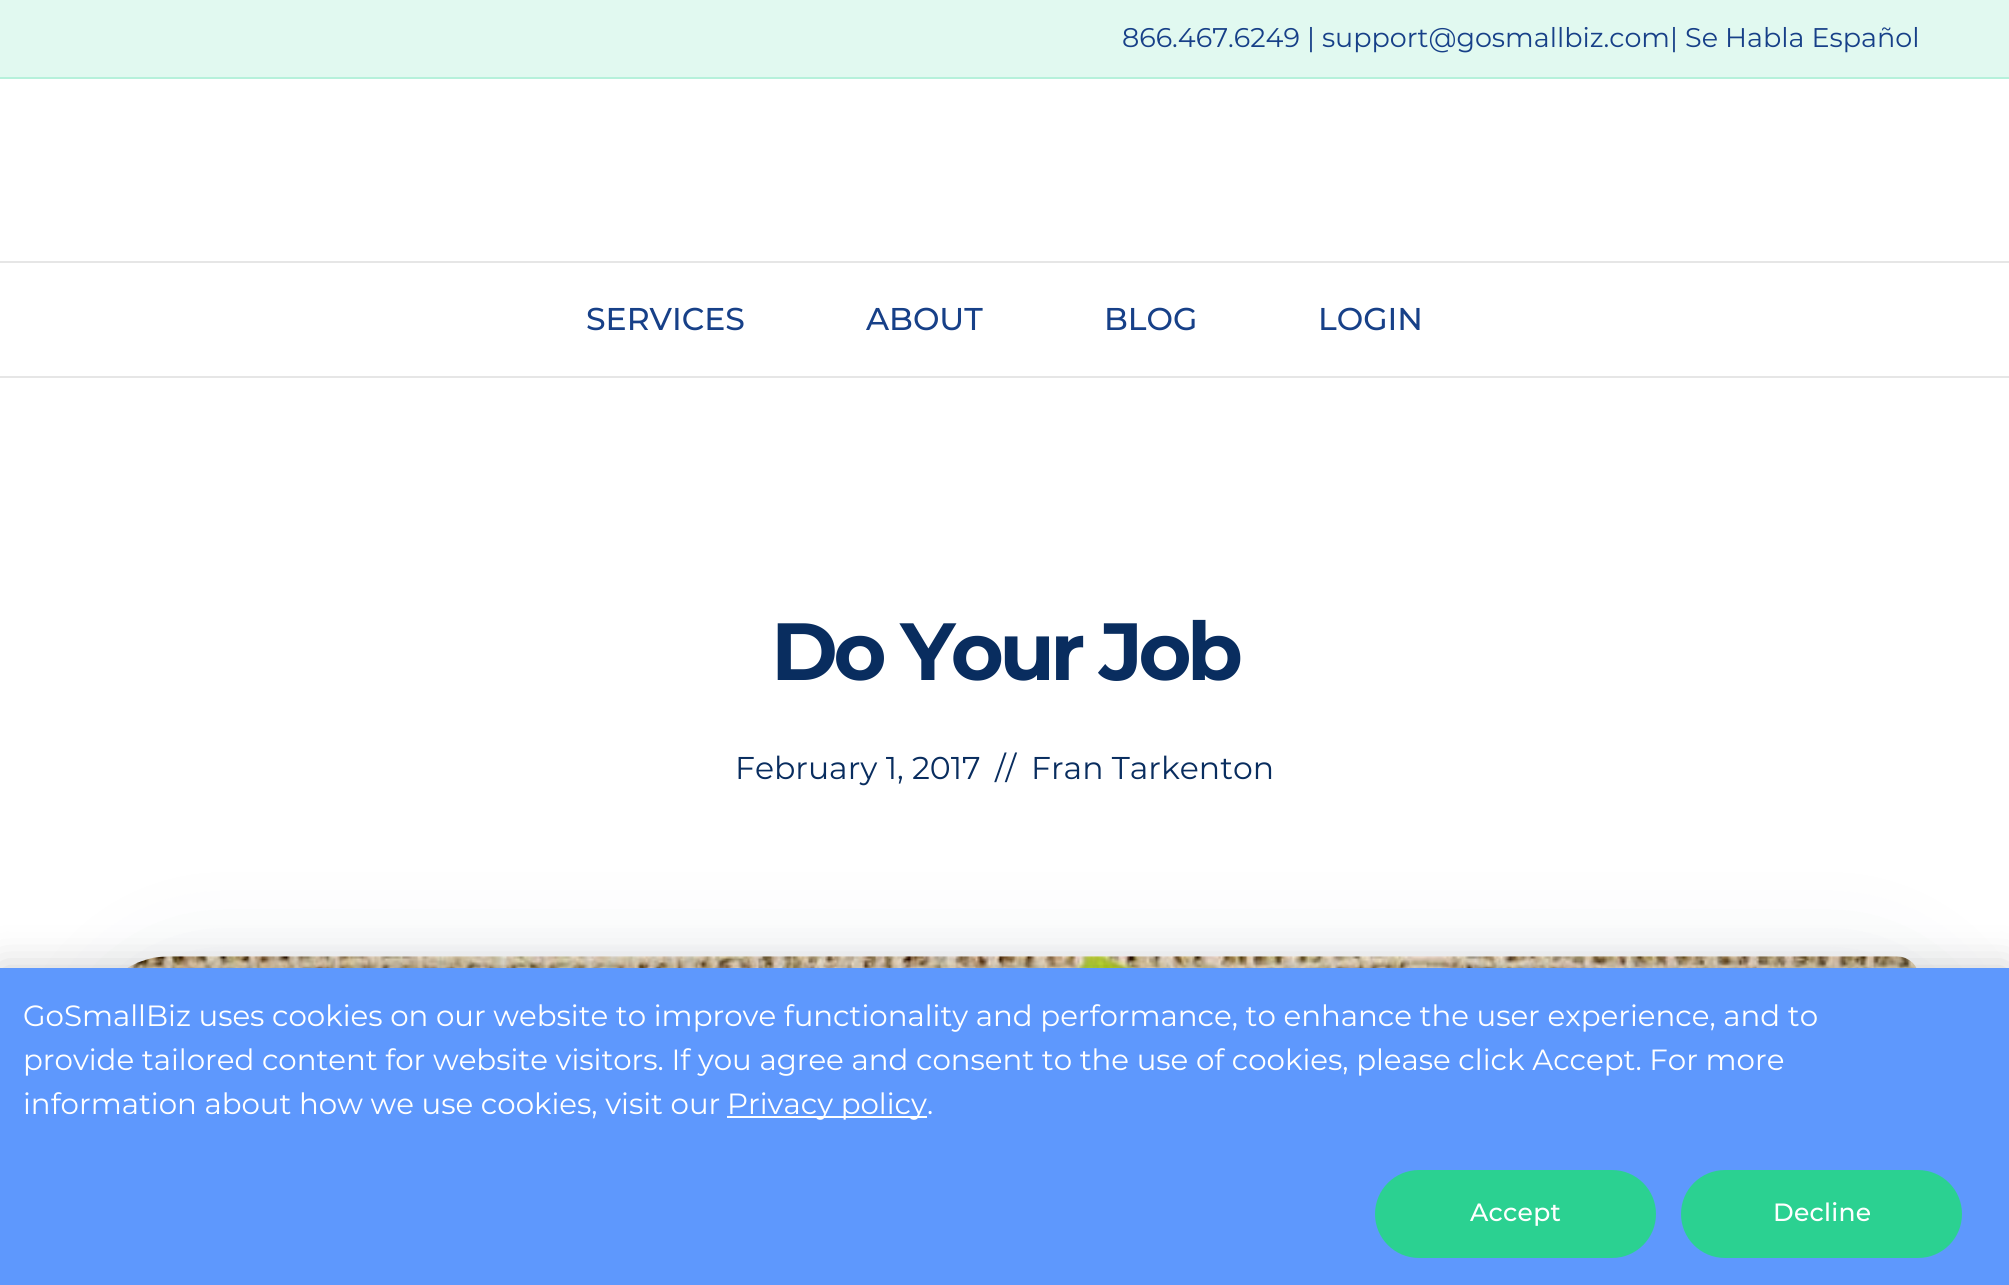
import math
import cairo

surface = cairo.ImageSurface(cairo.FORMAT_RGB24, 2009, 1285)
cr = cairo.Context(surface)
options = cairo.FontOptions()
options.set_hint_metrics(cairo.HINT_METRICS_OFF)
options.set_hint_style(cairo.HINT_STYLE_NONE)
cr.set_font_options(options)
cr.set_miter_limit(4)


def rgb(code):
    cr.set_source_rgb(*(v / 255 for v in bytes.fromhex(code[-6:])))


def tracked(x, y, s, letter, word):
    cr.move_to(x, y)
    for ch in s:
        cr.show_text(ch)
        cr.rel_move_to(letter + word * (ch == ' '), 0)


def rrect(x, y, w, h, r):
    cr.new_sub_path()
    for i, (u, v) in enumerate([(x + w - r, y + h - r), (x + r, y + h - r), (x + r, y + r), (x + w - r, y + r)]):
        cr.arc(u, v, r, i * math.pi / 2, (i + 1) * math.pi / 2)
    cr.close_path()


def soft_shadow(x, y, w, h, r, blur, alpha):
    cr.push_group_with_content(cairo.CONTENT_ALPHA)
    cr.set_operator(cairo.OPERATOR_SOURCE)
    for i in range(15, -16, -2):
        e = blur * i / 6
        if min(w, h) + 2 * e > 0:
            cr.set_source_rgba(0, 0, 0, alpha * math.erfc((i - 1) / 8.5) / 2)
            rrect(x - e, y - e, w + 2 * e, h + 2 * e, max(0, min(r + e + blur * .6, min(w, h) / 2 + e)))
            cr.fill()
    cr.mask(cr.pop_group())


def image(path, x, y, w, h):
    cr.save()
    cr.set_source_surface(cairo.ImageSurface.create_from_png(path), x, y)
    cr.rectangle(x, y, w, h)
    cr.fill()
    cr.restore()


rgb("#ffffff")
cr.paint()
for x, y, w, h, color in [
    (0, 0, 2009, 77, "#e1f9f0"),
    (0, 77, 2009, 2, "#b6f1db"),
    (0, 261, 2009, 2, "#e6e6e6"),
    (0, 376, 2009, 2, "#e6e6e6"),
]:
    rgb(color)
    cr.rectangle(x, y, w, h)
    cr.fill()
rgb("#092d5f")
soft_shadow(90, 956, 1874, 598, 101, 56, 0.07)
image("img/1.png", 127, 956, 1790, 12)
rgb("#000000")
soft_shadow(0, 968, 2009, 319, 0, 20, 0.2)
rgb("#5e98fd")
cr.rectangle(0, 968, 2009, 317)
cr.fill()
rgb("#ffffff")
cr.rectangle(727, 1116, 200, 2)
cr.fill()
rgb("#2bd191")
rrect(1376, 1171, 279, 86, 43)
cr.fill_preserve()
cr.stroke()
rrect(1682, 1171, 279, 86, 43)
cr.fill_preserve()
cr.stroke()
cr.select_font_face("Montserrat")
cr.set_font_size(27)
rgb("#174088")
cr.move_to(1122, 47)
cr.show_text("866.467.6249 | support@gosmallbiz.com| Se Habla Español")
cr.select_font_face("Montserrat Medium")
cr.set_font_size(31.5)
for x, y, s in [
    (586, 330, "SERVICES"),
    (866, 330, "ABOUT"),
    (1104, 330, "BLOG"),
    (1318, 330, "LOGIN"),
]:
    cr.move_to(x, y)
    cr.show_text(s)
cr.select_font_face("Montserrat", cairo.FONT_SLANT_NORMAL, cairo.FONT_WEIGHT_BOLD)
cr.set_font_size(81)
rgb("#092d5f")
tracked(771, 680, "Do Your Job", -4.5, 0)
cr.select_font_face("Montserrat")
cr.set_font_size(31.5)
for x, y, s in [
    (735, 779, "February 1, 2017"),
    (995, 779, "//"),
    (1031, 779, "Fran Tarkenton"),
]:
    cr.move_to(x, y)
    cr.show_text(s)
cr.set_font_size(29.25)
rgb("#ffffff")
for x, y, s in [
    (23, 1026, "GoSmallBiz uses cookies on our website to improve functionality and performance, to enhance the user experience, and to"),
    (23, 1070, "provide tailored content for website visitors. If you agree and consent to the use of cookies, please click Accept. For more"),
    (23, 1114, "information about how we use cookies, visit our"),
    (727, 1114, "Privacy policy."),
]:
    cr.move_to(x, y)
    cr.show_text(s)
cr.select_font_face("Montserrat Medium")
cr.set_font_size(25)
tracked(1470, 1221, "Accept", 0.25, 0)
tracked(1773, 1221, "Decline", 0.25, 0)
surface.write_to_png("page.png")
